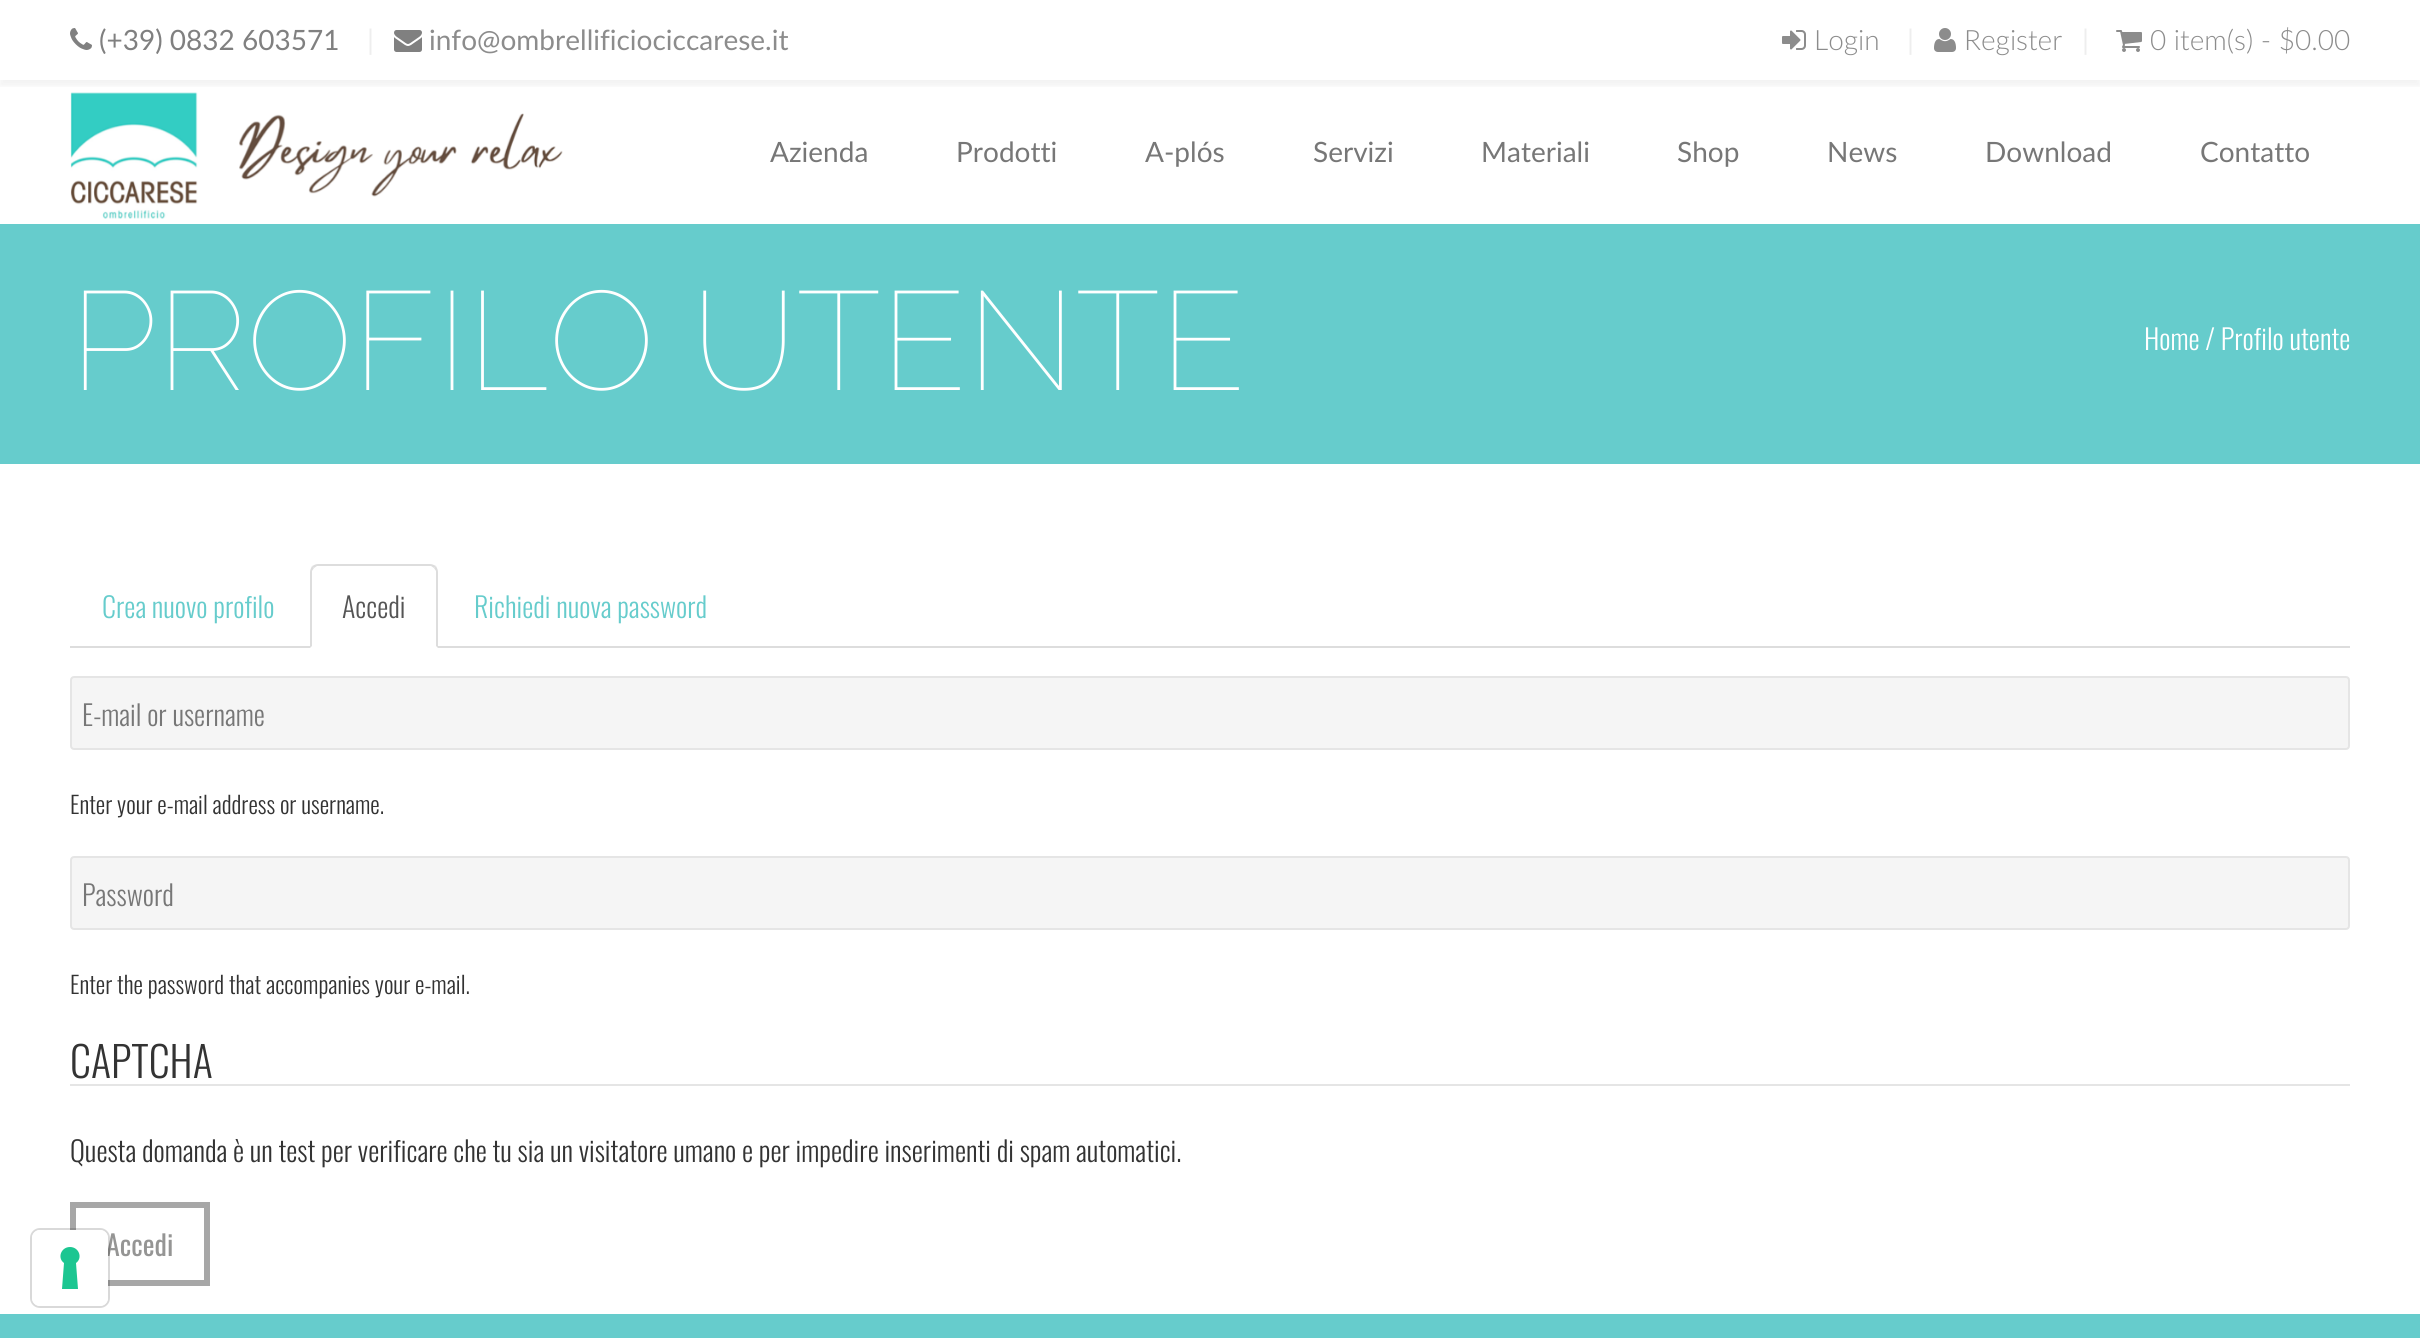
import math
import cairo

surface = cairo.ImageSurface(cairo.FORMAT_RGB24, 2420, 1338)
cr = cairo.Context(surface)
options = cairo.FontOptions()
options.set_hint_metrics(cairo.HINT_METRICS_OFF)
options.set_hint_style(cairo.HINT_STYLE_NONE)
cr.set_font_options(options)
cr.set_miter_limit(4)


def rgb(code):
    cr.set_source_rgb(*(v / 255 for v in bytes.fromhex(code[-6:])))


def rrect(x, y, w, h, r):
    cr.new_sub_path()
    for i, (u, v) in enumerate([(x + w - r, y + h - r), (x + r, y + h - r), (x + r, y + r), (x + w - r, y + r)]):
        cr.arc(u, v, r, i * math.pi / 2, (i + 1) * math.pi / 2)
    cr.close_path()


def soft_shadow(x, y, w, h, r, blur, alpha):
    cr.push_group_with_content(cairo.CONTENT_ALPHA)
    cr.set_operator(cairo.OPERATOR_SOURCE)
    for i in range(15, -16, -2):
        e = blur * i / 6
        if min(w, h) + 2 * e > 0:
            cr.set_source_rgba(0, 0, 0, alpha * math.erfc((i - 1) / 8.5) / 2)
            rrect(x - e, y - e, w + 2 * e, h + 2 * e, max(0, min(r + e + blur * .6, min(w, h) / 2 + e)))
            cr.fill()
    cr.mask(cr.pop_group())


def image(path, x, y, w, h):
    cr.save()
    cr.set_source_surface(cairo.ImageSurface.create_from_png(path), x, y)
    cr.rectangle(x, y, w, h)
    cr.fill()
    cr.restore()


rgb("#ffffff")
cr.paint()
cr.save()
cr.rectangle(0, 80, 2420, 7)
cr.clip()
rgb("#000000")
soft_shadow(0, 6, 2420, 80, 0, 3, 0.05)
cr.restore()
image("img/1.png", 70, 28, 22, 22)
image("img/2.png", 394, 30, 28, 22)
image("img/3.png", 1782, 30, 24, 20)
image("img/4.png", 1934, 28, 22, 24)
image("img/5.png", 2116, 30, 26, 22)
image("img/6.png", 70, 92, 493, 127)
rgb("#66cccc")
cr.rectangle(0, 224, 2420, 240)
cr.fill()
rgb("#dddddd")
cr.rectangle(70, 646, 2280, 2)
cr.fill()
rgb("#ffffff")
cr.new_path()
cr.move_to(318, 564)
cr.line_to(430, 564)
cr.curve_to(434.5, 564, 438, 567.5, 438, 572)
cr.line_to(438, 648)
cr.line_to(310, 648)
cr.line_to(310, 572)
cr.curve_to(310, 567.5, 313.5, 564, 318, 564)
cr.close_path()
cr.fill()
rgb("#dddddd")
cr.new_path()
cr.move_to(318, 564)
cr.curve_to(316, 564, 314, 565, 312, 566)
cr.line_to(314, 568)
cr.line_to(317, 566)
cr.line_to(431, 566)
cr.line_to(434, 568)
cr.line_to(436, 566)
cr.curve_to(434, 565, 432, 564, 430, 564)
cr.close_path()
cr.fill()
cr.new_path()
cr.move_to(438, 648)
cr.line_to(438, 572)
cr.curve_to(438, 570, 437, 568, 436, 566)
cr.line_to(434, 568)
cr.line_to(436, 571)
cr.line_to(436, 646)
cr.close_path()
cr.fill()
cr.new_path()
cr.move_to(310, 648)
cr.line_to(312, 646)
cr.line_to(312, 571)
cr.line_to(314, 568)
cr.line_to(312, 566)
cr.curve_to(311, 568, 310, 570, 310, 572)
cr.close_path()
cr.fill()
rgb("#f5f5f5")
rrect(71, 677, 2278, 72, 3)
cr.fill_preserve()
rgb("#e5e5e5")
cr.stroke()
rgb("#f5f5f5")
rrect(71, 857, 2278, 72, 3)
cr.fill_preserve()
rgb("#e5e5e5")
cr.stroke()
cr.rectangle(70, 1084, 2280, 2)
cr.fill()
cr.rectangle(73, 1205, 134, 78)
rgb("#a7a7a7")
cr.set_line_width(6)
cr.stroke()
rgb("#66cccc")
cr.rectangle(0, 1314, 2420, 24)
cr.fill()
cr.select_font_face("Lato")
cr.set_font_size(28)
rgb("#808080")
cr.move_to(99, 50)
cr.show_text("(+39) 0832 603571")
rgb("#eeeeee")
cr.move_to(367, 50)
cr.show_text("|")
rgb("#8c8c8c")
cr.move_to(429, 50)
cr.show_text("info@ombrellificiociccarese.it")
cr.select_font_face("Lato Light")
cr.move_to(1814, 50)
cr.show_text("Login")
cr.select_font_face("Lato")
rgb("#eeeeee")
cr.move_to(1907, 50)
cr.show_text("|")
cr.select_font_face("Lato Light")
rgb("#8c8c8c")
cr.move_to(1964, 50)
cr.show_text("Register")
cr.select_font_face("Lato")
rgb("#eeeeee")
cr.move_to(2082, 50)
cr.show_text("|")
cr.select_font_face("Lato Light")
rgb("#8c8c8c")
cr.move_to(2150, 50)
cr.show_text("0 item(s) - $0.00")
cr.select_font_face("Lato")
rgb("#777777")
for x, y, s in [
    (770, 162, "Azienda"),
    (956, 162, "Prodotti"),
    (1145, 162, "A-plós"),
    (1313, 162, "Servizi"),
    (1481, 162, "Materiali"),
    (1677, 162, "Shop"),
    (1827, 162, "News"),
    (1985, 162, "Download"),
    (2200, 162, "Contatto"),
]:
    cr.move_to(x, y)
    cr.show_text(s)
cr.select_font_face("Raleway Thin")
cr.set_font_size(140)
rgb("#ffffff")
cr.move_to(70, 390)
cr.show_text("PROFILO UTENTE")
cr.select_font_face("Oswald Light")
cr.set_font_size(28)
cr.move_to(2144, 350)
cr.show_text("Home / Profilo utente")
rgb("#66cccc")
cr.move_to(102, 618)
cr.show_text("Crea nuovo profilo")
rgb("#555555")
cr.move_to(342, 618)
cr.show_text("Accedi")
rgb("#66cccc")
cr.move_to(474, 618)
cr.show_text("Richiedi nuova password")
rgb("#777777")
cr.move_to(82, 726)
cr.show_text("E-mail or username")
cr.set_font_size(23.75)
rgb("#333333")
cr.move_to(70, 814)
cr.show_text("Enter your e-mail address or username.")
cr.set_font_size(28)
rgb("#777777")
cr.move_to(82, 906)
cr.show_text("Password")
cr.set_font_size(23.75)
rgb("#333333")
cr.move_to(70, 994)
cr.show_text("Enter the password that accompanies your e-mail.")
cr.set_font_size(42)
cr.move_to(70, 1078)
cr.show_text("CAPTCHA")
cr.set_font_size(28)
cr.move_to(70, 1162)
cr.show_text("Questa domanda è un test per verificare che tu sia un visitatore umano e per impedire inserimenti di spam automatici.")
cr.select_font_face("Oswald")
rgb("#959594")
cr.move_to(106, 1256)
cr.show_text("Accedi")
rrect(31, 1229, 78, 78, 9)
cr.set_source_rgba(0, 0, 0, 0.15)
cr.set_line_width(2)
cr.stroke()
rgb("#ffffff")
rrect(32, 1230, 76, 76, 8)
cr.fill()
rgb("#1cc691")
cr.set_fill_rule(cairo.FILL_RULE_EVEN_ODD)
cr.new_path()
cr.move_to(70, 1247)
cr.curve_to(79, 1247, 83, 1258, 76, 1263)
cr.line_to(78, 1289)
cr.line_to(62, 1289)
cr.line_to(64, 1263)
cr.curve_to(57, 1258, 61, 1247, 70, 1247)
cr.close_path()
cr.fill()
surface.write_to_png("page.png")
